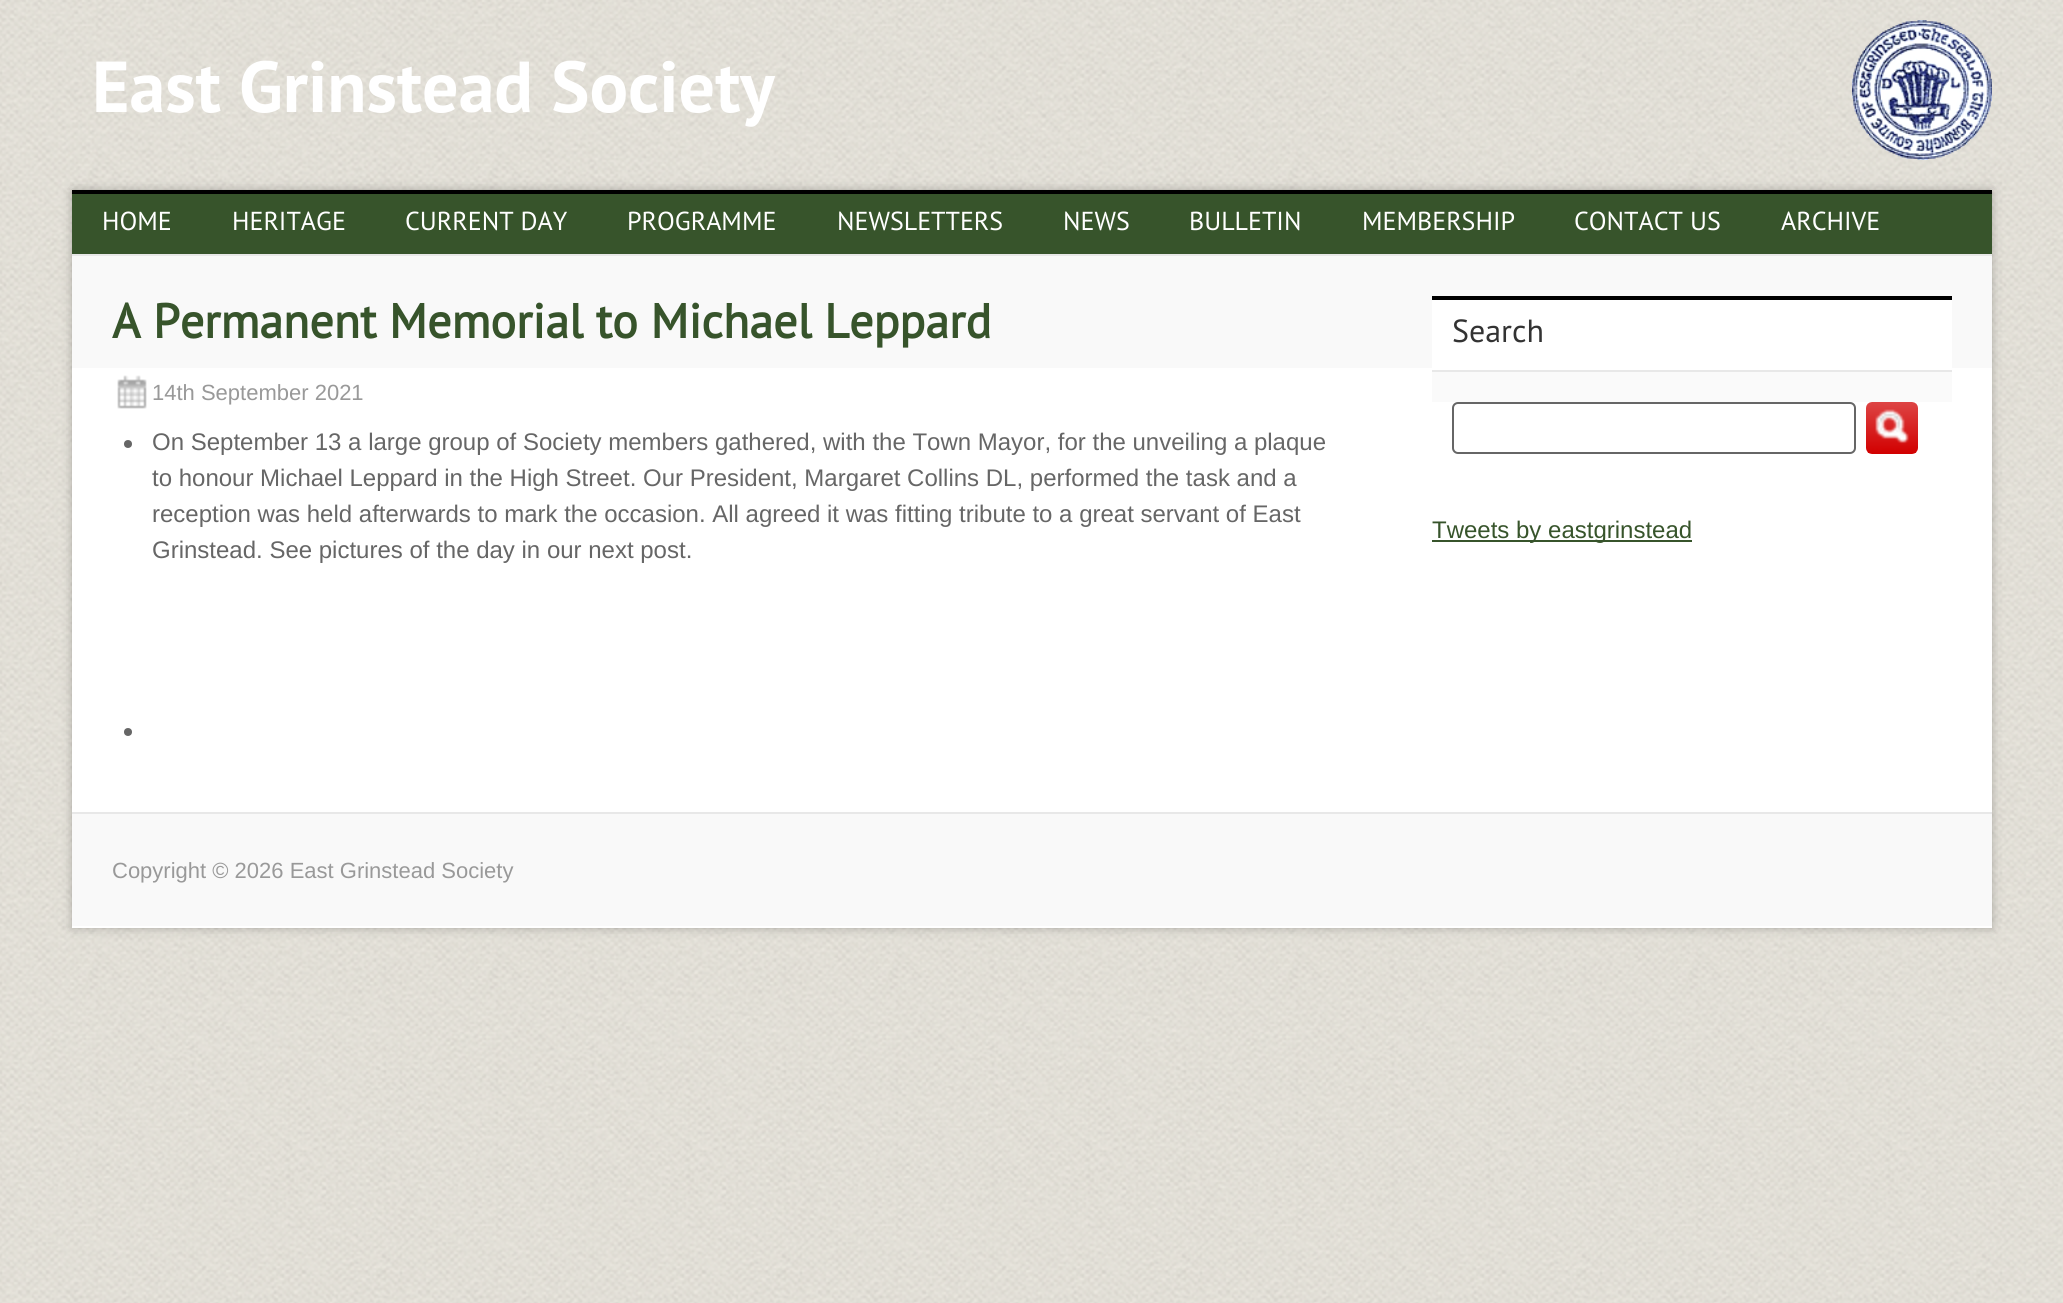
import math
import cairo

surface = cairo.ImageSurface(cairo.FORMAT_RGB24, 2063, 1303)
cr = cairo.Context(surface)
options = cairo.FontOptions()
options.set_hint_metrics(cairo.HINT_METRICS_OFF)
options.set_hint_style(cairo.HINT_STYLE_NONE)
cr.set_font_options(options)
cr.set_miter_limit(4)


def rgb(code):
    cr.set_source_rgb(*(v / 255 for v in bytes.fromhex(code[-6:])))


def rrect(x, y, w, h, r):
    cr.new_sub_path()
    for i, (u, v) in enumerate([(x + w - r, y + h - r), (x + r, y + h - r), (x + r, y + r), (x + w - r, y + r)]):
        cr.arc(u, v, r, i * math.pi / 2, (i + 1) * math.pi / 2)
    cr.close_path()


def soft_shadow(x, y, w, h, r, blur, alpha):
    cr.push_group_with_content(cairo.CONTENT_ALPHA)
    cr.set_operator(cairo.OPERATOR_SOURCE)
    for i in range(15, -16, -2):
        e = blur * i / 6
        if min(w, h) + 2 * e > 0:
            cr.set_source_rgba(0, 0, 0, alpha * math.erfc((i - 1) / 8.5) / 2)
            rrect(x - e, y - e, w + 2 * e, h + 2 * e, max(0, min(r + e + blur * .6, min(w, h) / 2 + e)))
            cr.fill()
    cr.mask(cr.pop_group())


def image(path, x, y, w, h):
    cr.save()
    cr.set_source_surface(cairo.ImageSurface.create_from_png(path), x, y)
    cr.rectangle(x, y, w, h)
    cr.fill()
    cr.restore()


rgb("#ffffff")
cr.paint()
image("img/1.png", 0, 0, 2063, 1303)
image("img/2.png", 1852, 20, 140, 140)
rgb("#000000")
soft_shadow(72, 190, 1920, 738, 0, 5, 0.25)
for x, y, w, h, color in [
    (72, 368, 1920, 560, "#ffffff"),
    (72, 190, 1920, 4, "#000000"),
    (72, 194, 1920, 60, "#37542b"),
    (72, 256, 1920, 112, "#f9f9f9"),
    (72, 254, 1920, 2, "#e8e8e8"),
]:
    rgb(color)
    cr.rectangle(x, y, w, h)
    cr.fill()
image("img/3.png", 117, 375, 30, 34)
rgb("#666666")
cr.arc(128, 444, 4, 0, 2 * math.pi)
cr.fill()
cr.arc(128, 732, 4, 0, 2 * math.pi)
cr.fill()
for x, y, w, h, color in [
    (1432, 372, 520, 30, "#fafafa"),
    (1432, 296, 520, 4, "#000000"),
    (1432, 300, 520, 68, "#ffffff"),
    (1432, 370, 520, 2, "#e8e8e8"),
]:
    rgb(color)
    cr.rectangle(x, y, w, h)
    cr.fill()
rrect(1453, 403, 402, 50, 5)
rgb("#666666")
cr.stroke()
image("img/4.png", 1866, 402, 52, 52)
for x, y, w, h, color in [
    (1432, 540, 260, 2, "#37542b"),
    (72, 814, 1920, 112, "#f9f9f9"),
    (72, 812, 1920, 2, "#e8e8e8"),
]:
    rgb(color)
    cr.rectangle(x, y, w, h)
    cr.fill()
cr.select_font_face("PT Sans", cairo.FONT_SLANT_NORMAL, cairo.FONT_WEIGHT_BOLD)
cr.set_font_size(72)
rgb("#ffffff")
cr.move_to(92, 112)
cr.show_text("East Grinstead Society")
cr.select_font_face("PT Sans")
cr.set_font_size(26)
for x, y, s in [
    (102, 230, "HOME"),
    (232, 230, "HERITAGE"),
    (405, 230, "CURRENT DAY"),
    (627, 230, "PROGRAMME"),
    (837, 230, "NEWSLETTERS"),
    (1063, 230, "NEWS"),
    (1189, 230, "BULLETIN"),
    (1362, 230, "MEMBERSHIP"),
    (1574, 230, "CONTACT US"),
    (1781, 230, "ARCHIVE"),
]:
    cr.move_to(x, y)
    cr.show_text(s)
cr.select_font_face("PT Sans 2", cairo.FONT_SLANT_NORMAL, cairo.FONT_WEIGHT_BOLD)
cr.set_font_size(48)
rgb("#37542b")
cr.move_to(112, 338)
cr.show_text("A Permanent Memorial to Michael Leppard")
cr.select_font_face("Liberation Sans")
cr.set_font_size(22)
rgb("#999999")
cr.move_to(152, 400)
cr.show_text("14th September 2021")
cr.set_font_size(24)
rgb("#666666")
for x, y, s in [
    (152, 450, "On September 13 a large group of Society members gathered, with the Town Mayor, for the unveiling a plaque"),
    (152, 486, "to honour Michael Leppard in the High Street. Our President, Margaret Collins DL, performed the task and a"),
    (152, 522, "reception was held afterwards to mark the occasion. All agreed it was fitting tribute to a great servant of East"),
    (152, 558, "Grinstead. See pictures of the day in our next post."),
]:
    cr.move_to(x, y)
    cr.show_text(s)
cr.select_font_face("PT Sans")
cr.set_font_size(32)
rgb("#333333")
cr.move_to(1452, 342)
cr.show_text("Search")
cr.select_font_face("Liberation Sans")
cr.set_font_size(24)
rgb("#37542b")
cr.move_to(1432, 538)
cr.show_text("Tweets by eastgrinstead")
cr.set_font_size(22)
rgb("#999999")
cr.move_to(112, 878)
cr.show_text("Copyright © 2026 East Grinstead Society")
surface.write_to_png("page.png")
